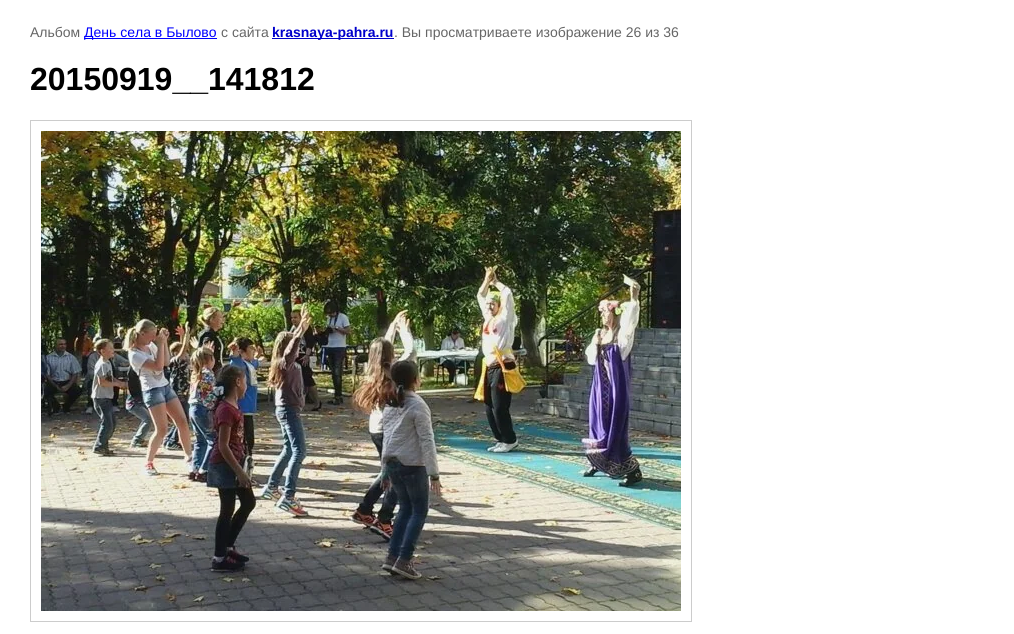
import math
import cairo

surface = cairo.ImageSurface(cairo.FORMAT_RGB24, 1014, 634)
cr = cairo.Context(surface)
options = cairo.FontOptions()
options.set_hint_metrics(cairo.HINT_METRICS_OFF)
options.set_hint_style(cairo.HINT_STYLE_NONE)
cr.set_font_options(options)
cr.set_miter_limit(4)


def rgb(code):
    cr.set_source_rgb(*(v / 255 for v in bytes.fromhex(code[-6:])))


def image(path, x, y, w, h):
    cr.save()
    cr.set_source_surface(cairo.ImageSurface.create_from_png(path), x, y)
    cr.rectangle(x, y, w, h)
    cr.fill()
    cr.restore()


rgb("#ffffff")
cr.paint()
rgb("#0000ff")
cr.rectangle(84, 38, 133, 1)
cr.fill()
rgb("#0000cc")
cr.rectangle(272, 38, 122, 1)
cr.fill()
cr.rectangle(30.5, 120.5, 661, 501)
rgb("#cccccc")
cr.set_line_width(1)
cr.stroke()
image("img/1.png", 41, 131, 640, 480)
cr.select_font_face("Liberation Sans")
cr.set_font_size(14)
rgb("#666666")
cr.move_to(30, 37)
cr.show_text("Альбом")
rgb("#0000ff")
cr.move_to(84, 37)
cr.show_text("День села в Былово")
rgb("#666666")
cr.move_to(221, 37)
cr.show_text("с сайта")
cr.select_font_face("Liberation Sans", cairo.FONT_SLANT_NORMAL, cairo.FONT_WEIGHT_BOLD)
rgb("#0000cc")
cr.move_to(272, 37)
cr.show_text("krasnaya-pahra.ru")
cr.select_font_face("Liberation Sans")
rgb("#666666")
cr.move_to(394, 37)
cr.show_text(". Вы просматриваете изображение 26 из 36")
cr.select_font_face("Liberation Sans", cairo.FONT_SLANT_NORMAL, cairo.FONT_WEIGHT_BOLD)
cr.set_font_size(32)
rgb("#000000")
cr.move_to(30, 90)
cr.show_text("20150919__141812")
surface.write_to_png("page.png")
